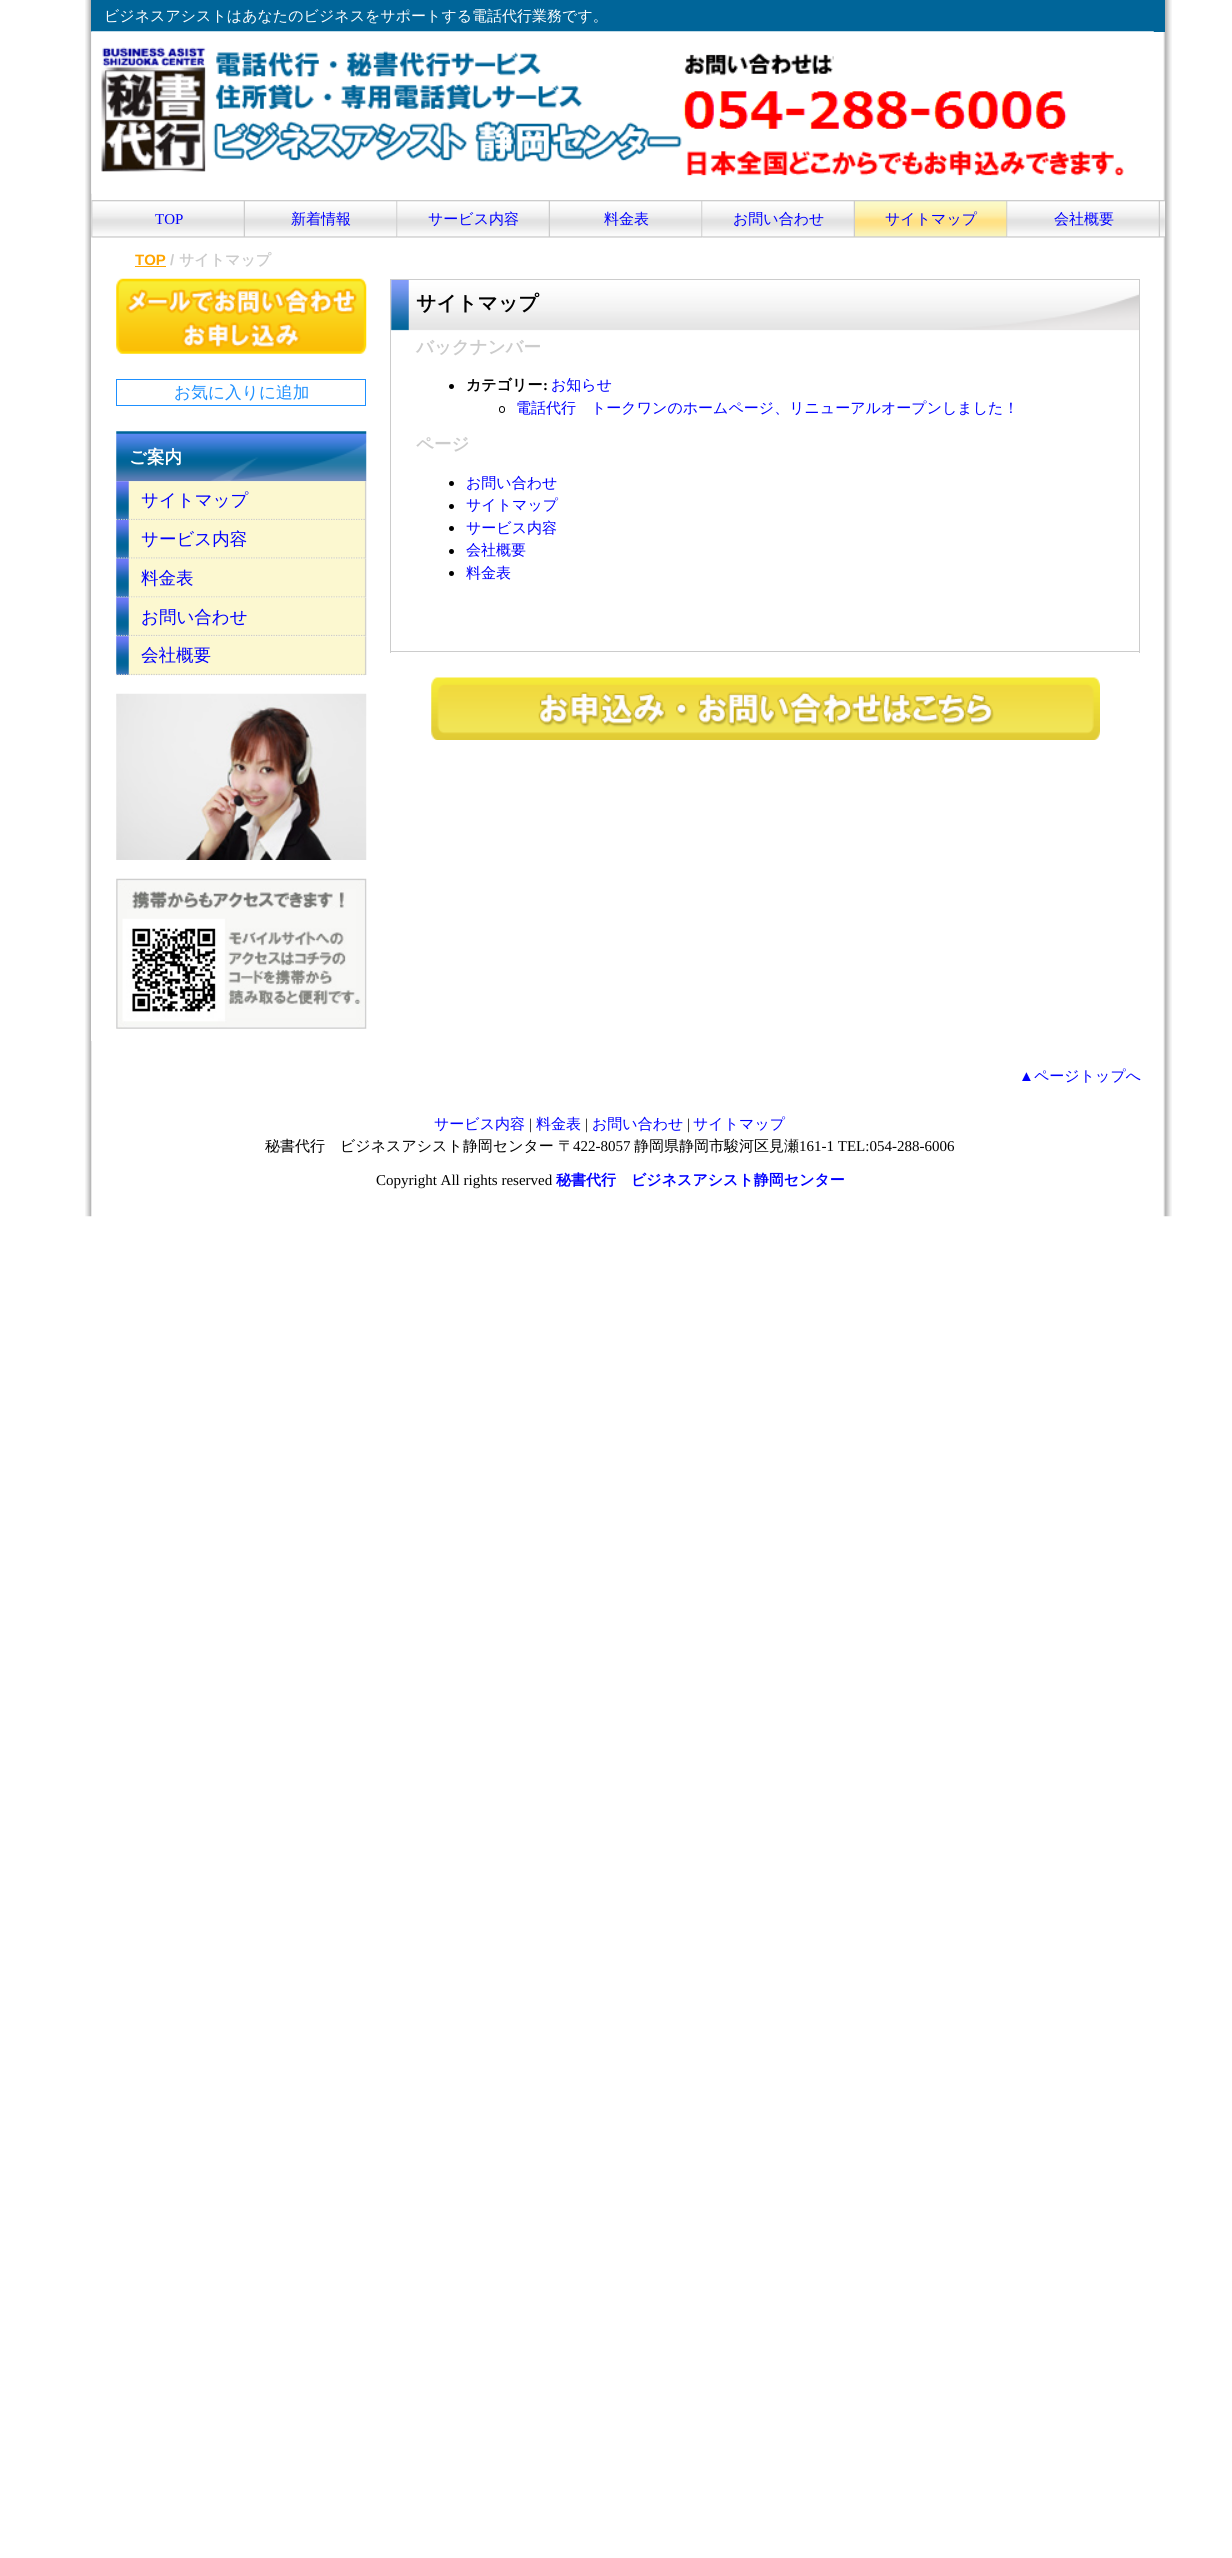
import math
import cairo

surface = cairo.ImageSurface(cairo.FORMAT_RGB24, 1232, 2558)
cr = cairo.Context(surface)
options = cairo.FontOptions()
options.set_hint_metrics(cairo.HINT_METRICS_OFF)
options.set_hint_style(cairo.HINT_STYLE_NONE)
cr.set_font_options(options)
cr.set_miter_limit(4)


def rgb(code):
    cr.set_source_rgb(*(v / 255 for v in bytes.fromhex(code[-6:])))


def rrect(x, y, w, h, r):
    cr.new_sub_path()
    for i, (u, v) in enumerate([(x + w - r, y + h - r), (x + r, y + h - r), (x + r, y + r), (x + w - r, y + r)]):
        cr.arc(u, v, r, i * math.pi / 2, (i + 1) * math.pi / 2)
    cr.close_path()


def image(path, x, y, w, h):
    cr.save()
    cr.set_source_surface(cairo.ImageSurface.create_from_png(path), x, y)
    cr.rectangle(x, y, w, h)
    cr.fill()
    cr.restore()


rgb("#ffffff")
cr.paint()
image("img/1.png", 85, 0, 1087, 1217)
rgb("#006599")
cr.rectangle(91, 0, 1074, 32)
cr.fill()
image("img/2.png", 91, 31, 1063, 163)
image("img/3.png", 101, 47, 581, 125)
rgb("#ffffff")
cr.rectangle(91, 200, 1, 841)
cr.fill()
image("img/4.png", 91, 200, 1074, 38)
image("img/5.png", 92, 201, 153, 37)
image("img/6.png", 245, 201, 153, 37)
image("img/7.png", 398, 201, 152, 37)
image("img/6.png", 550, 201, 153, 37)
image("img/7.png", 703, 201, 152, 37)
image("img/8.png", 855, 201, 153, 37)
image("img/7.png", 1008, 201, 152, 37)
rgb("#ffa500")
cr.rectangle(135, 266, 31, 1)
cr.fill()
image("img/9.png", 116, 278, 251, 76)
cr.rectangle(116.5, 379.5, 249, 26)
rgb("#1e90ff")
cr.set_line_width(1)
cr.stroke()
image("img/10.png", 116, 431, 251, 51)
image("img/11.png", 116, 481, 251, 39)
cr.new_path()
cr.move_to(116, 519.5)
cr.line_to(366, 519.5)
rgb("#cccccc")
cr.set_line_width(1.2)
cr.set_dash([1.25, 1.25])
cr.stroke()
image("img/12.png", 116, 520, 251, 39)
cr.new_path()
cr.move_to(116, 558)
cr.line_to(366, 558)
cr.stroke()
image("img/13.png", 116, 558, 251, 40)
cr.new_path()
cr.move_to(116, 597)
cr.line_to(366, 597)
cr.stroke()
image("img/14.png", 116, 597, 251, 40)
cr.new_path()
cr.move_to(116, 635.5)
cr.line_to(366, 635.5)
cr.stroke()
image("img/15.png", 116, 636, 251, 39)
cr.new_path()
cr.move_to(116, 674.5)
cr.line_to(366, 674.5)
cr.stroke()
image("img/16.png", 116, 693, 251, 167)
image("img/17.png", 116, 878, 251, 151)
image("img/18.png", 391, 280, 748, 51)
for x, y, w, h, color in [
    (390, 279, 750, 1, "#cccccc"),
    (1139, 279, 1, 374, "#cccccc"),
    (390, 279, 1, 355, "#cccccc"),
]:
    rgb(color)
    cr.rectangle(x, y, w, h)
    cr.fill()
rgb("#000000")
cr.arc(451.5, 386.5, 2.5, 0, 2 * math.pi)
cr.fill()
rrect(499.5, 406.5, 5, 6, 2.5)
cr.set_line_width(1)
cr.set_dash([])
cr.stroke()
cr.arc(451.5, 483.5, 2.5, 0, 2 * math.pi)
cr.fill()
cr.arc(451.5, 506.5, 2.5, 0, 2 * math.pi)
cr.fill()
cr.arc(451.5, 528.5, 2.5, 0, 2 * math.pi)
cr.fill()
cr.arc(451.5, 551.5, 2.5, 0, 2 * math.pi)
cr.fill()
cr.arc(451.5, 573.5, 2.5, 0, 2 * math.pi)
cr.fill()
rgb("#cccccc")
cr.rectangle(390, 651, 750, 1)
cr.fill()
cr.rectangle(390, 634, 1, 19)
cr.fill()
image("img/19.png", 431, 677, 669, 63)
cr.select_font_face("WenQuanYi Zen Hei Medium")
cr.set_font_size(15)
rgb("#ffffff")
cr.move_to(104, 21)
cr.show_text("ビジネスアシストはあなたのビジネスをサポートする電話代行業務です。")
cr.select_font_face("Liberation Serif")
rgb("#0000ff")
cr.move_to(155, 224)
cr.show_text("TOP")
cr.select_font_face("WenQuanYi Zen Hei Medium")
for x, y, s in [
    (291, 224, "新着情報"),
    (428, 224, "サービス内容"),
    (604, 224, "料金表"),
    (733, 224, "お問い合わせ"),
    (885, 224, "サイトマップ"),
    (1054, 224, "会社概要"),
]:
    cr.move_to(x, y)
    cr.show_text(s)
cr.select_font_face("Liberation Sans", cairo.FONT_SLANT_NORMAL, cairo.FONT_WEIGHT_BOLD)
rgb("#ffa500")
cr.move_to(135, 265)
cr.show_text("TOP")
rgb("#cccccc")
cr.move_to(170, 265)
cr.show_text("/")
cr.select_font_face("WenQuanYi Zen Hei", cairo.FONT_SLANT_NORMAL, cairo.FONT_WEIGHT_BOLD)
cr.move_to(179, 265)
cr.show_text("サイトマップ")
cr.select_font_face("WenQuanYi Zen Hei Medium")
cr.set_font_size(16.75)
rgb("#1e90ff")
cr.move_to(174, 398)
cr.show_text("お気に入りに追加")
cr.select_font_face("WenQuanYi Zen Hei", cairo.FONT_SLANT_NORMAL, cairo.FONT_WEIGHT_BOLD)
cr.set_font_size(17.5)
rgb("#ffffff")
cr.move_to(129, 463)
cr.show_text("ご案内")
cr.select_font_face("WenQuanYi Zen Hei Medium")
rgb("#0000ff")
for x, y, s in [
    (141, 506, "サイトマップ"),
    (141, 545, "サービス内容"),
    (141, 584, "料金表"),
    (141, 623, "お問い合わせ"),
    (141, 661, "会社概要"),
]:
    cr.move_to(x, y)
    cr.show_text(s)
cr.select_font_face("WenQuanYi Zen Hei", cairo.FONT_SLANT_NORMAL, cairo.FONT_WEIGHT_BOLD)
cr.set_font_size(20)
rgb("#000000")
cr.move_to(416, 310)
cr.show_text("サイトマップ")
cr.set_font_size(17.5)
rgb("#cccccc")
cr.move_to(416, 353)
cr.show_text("バックナンバー")
cr.set_font_size(15)
rgb("#000000")
cr.move_to(466, 390)
cr.show_text("カテゴリー")
cr.select_font_face("Liberation Serif", cairo.FONT_SLANT_NORMAL, cairo.FONT_WEIGHT_BOLD)
cr.move_to(543, 390)
cr.show_text(":")
cr.select_font_face("WenQuanYi Zen Hei Medium")
rgb("#0000ff")
cr.move_to(551, 390)
cr.show_text("お知らせ")
cr.move_to(516, 413)
cr.show_text("電話代行　トークワンのホームページ、リニューアルオープンしました！")
cr.select_font_face("WenQuanYi Zen Hei", cairo.FONT_SLANT_NORMAL, cairo.FONT_WEIGHT_BOLD)
cr.set_font_size(17.5)
rgb("#cccccc")
cr.move_to(416, 450)
cr.show_text("ページ")
cr.select_font_face("WenQuanYi Zen Hei Medium")
cr.set_font_size(15)
rgb("#0000ff")
for x, y, s in [
    (466, 488, "お問い合わせ"),
    (466, 510, "サイトマップ"),
    (466, 533, "サービス内容"),
    (466, 555, "会社概要"),
    (466, 578, "料金表"),
]:
    cr.move_to(x, y)
    cr.show_text(s)
cr.select_font_face("Liberation Serif")
cr.move_to(1019, 1081)
cr.show_text("▲")
cr.select_font_face("WenQuanYi Zen Hei Medium")
cr.move_to(1034, 1081)
cr.show_text("ページトップへ")
cr.move_to(434, 1129)
cr.show_text("サービス内容")
cr.select_font_face("Liberation Serif")
rgb("#000000")
cr.move_to(529, 1129)
cr.show_text("|")
cr.select_font_face("WenQuanYi Zen Hei Medium")
rgb("#0000ff")
cr.move_to(536, 1129)
cr.show_text("料金表")
cr.select_font_face("Liberation Serif")
rgb("#000000")
cr.move_to(585, 1129)
cr.show_text("|")
cr.select_font_face("WenQuanYi Zen Hei Medium")
rgb("#0000ff")
cr.move_to(592, 1129)
cr.show_text("お問い合わせ")
cr.select_font_face("Liberation Serif")
rgb("#000000")
cr.move_to(687, 1129)
cr.show_text("|")
cr.select_font_face("WenQuanYi Zen Hei Medium")
rgb("#0000ff")
cr.move_to(693, 1129)
cr.show_text("サイトマップ")
rgb("#000000")
cr.move_to(265, 1151)
cr.show_text("秘書代行　ビジネスアシスト静岡センター 〒")
cr.select_font_face("Liberation Serif")
cr.move_to(573, 1151)
cr.show_text("422-8057")
cr.select_font_face("WenQuanYi Zen Hei Medium")
cr.move_to(634, 1151)
cr.show_text("静岡県静岡市駿河区見瀬")
cr.select_font_face("Liberation Serif")
cr.move_to(799, 1151)
cr.show_text("161-1 TEL:054-288-6006")
cr.move_to(376, 1185)
cr.show_text("Copyright All rights reserved")
cr.select_font_face("WenQuanYi Zen Hei", cairo.FONT_SLANT_NORMAL, cairo.FONT_WEIGHT_BOLD)
rgb("#0000ff")
cr.move_to(556, 1185)
cr.show_text("秘書代行　ビジネスアシスト静岡センター")
surface.write_to_png("page.png")
